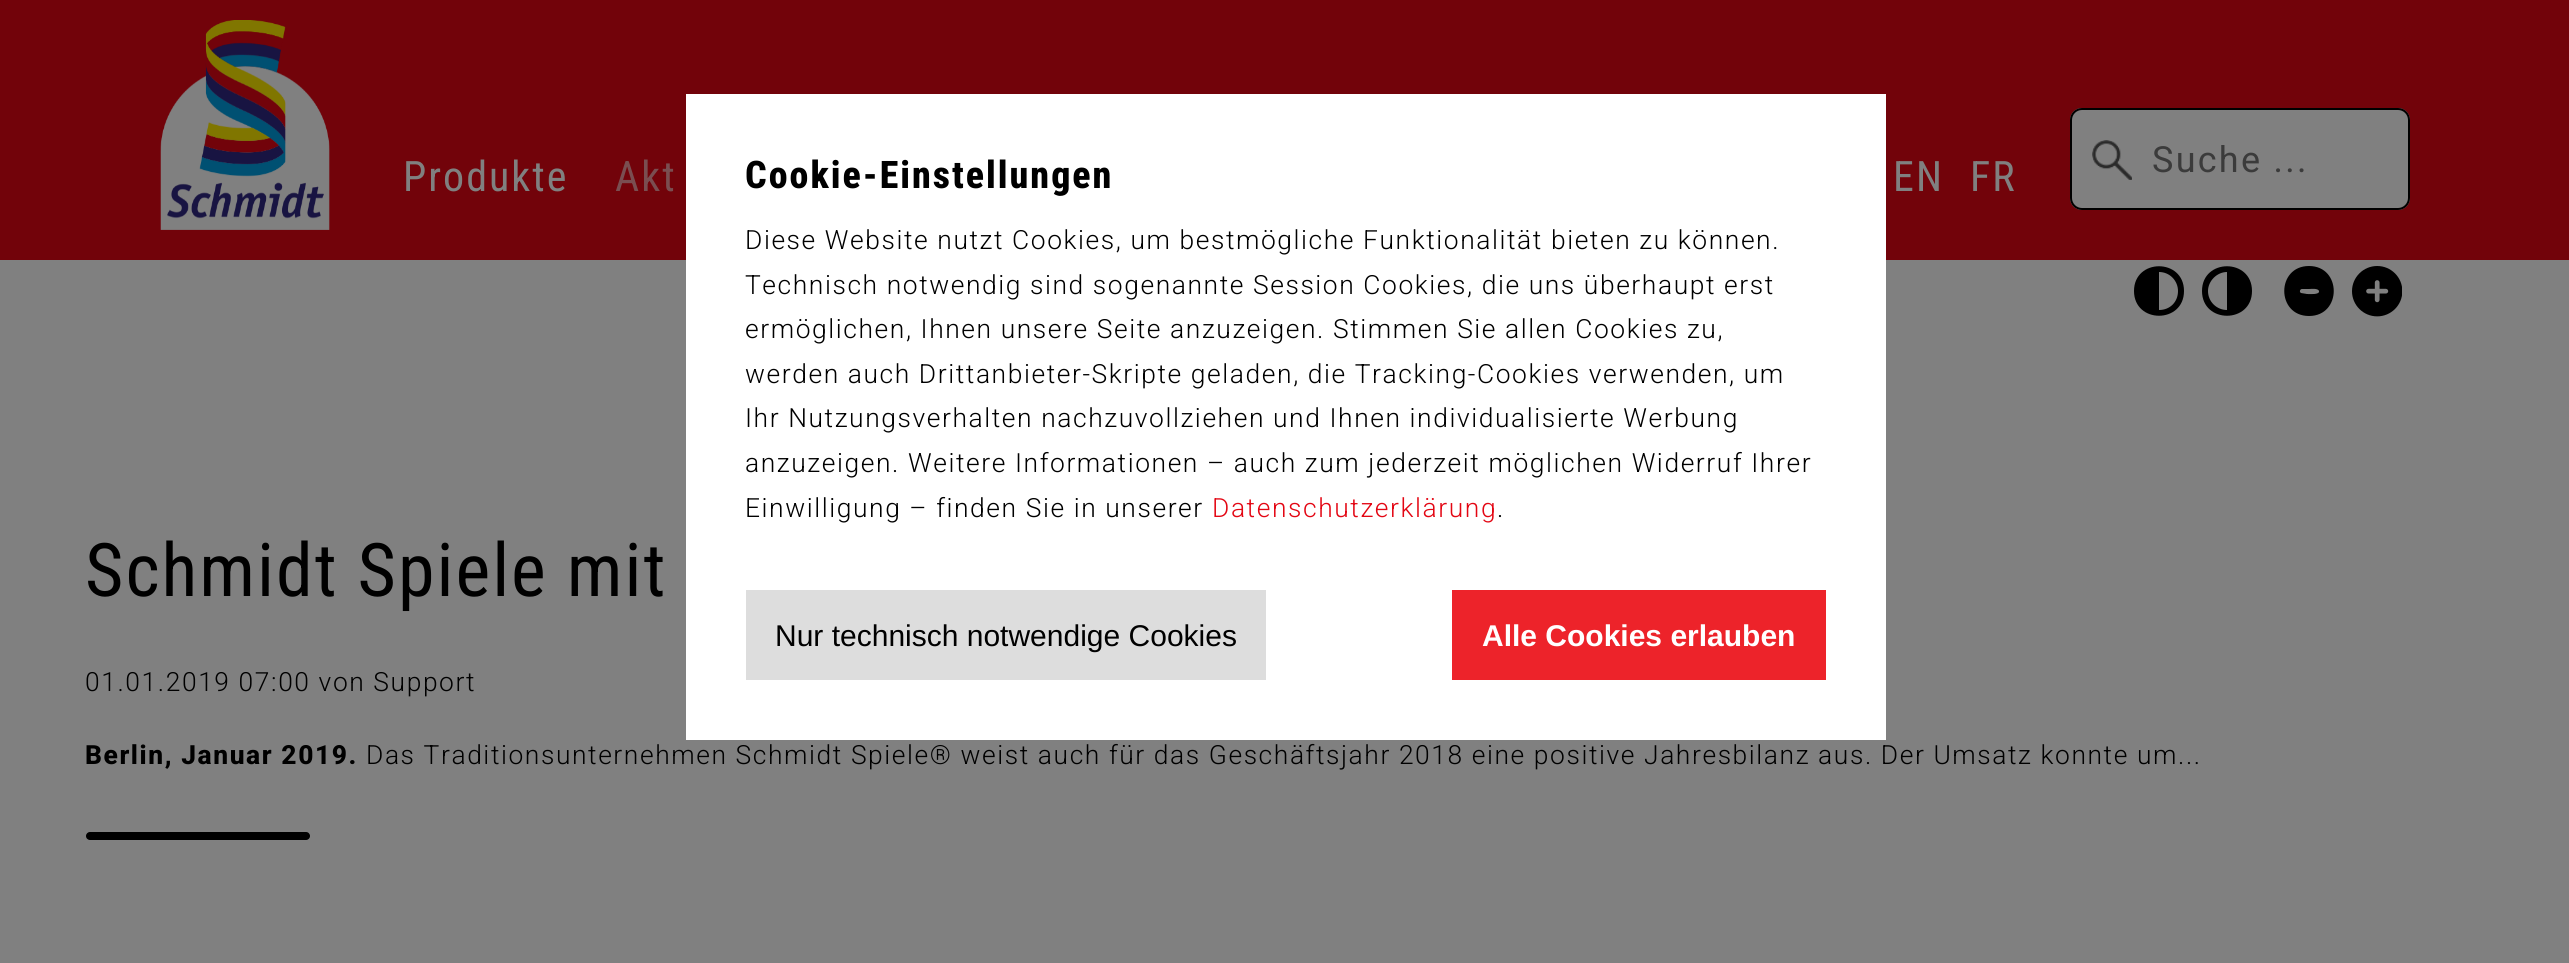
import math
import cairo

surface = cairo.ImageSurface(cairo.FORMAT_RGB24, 2569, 963)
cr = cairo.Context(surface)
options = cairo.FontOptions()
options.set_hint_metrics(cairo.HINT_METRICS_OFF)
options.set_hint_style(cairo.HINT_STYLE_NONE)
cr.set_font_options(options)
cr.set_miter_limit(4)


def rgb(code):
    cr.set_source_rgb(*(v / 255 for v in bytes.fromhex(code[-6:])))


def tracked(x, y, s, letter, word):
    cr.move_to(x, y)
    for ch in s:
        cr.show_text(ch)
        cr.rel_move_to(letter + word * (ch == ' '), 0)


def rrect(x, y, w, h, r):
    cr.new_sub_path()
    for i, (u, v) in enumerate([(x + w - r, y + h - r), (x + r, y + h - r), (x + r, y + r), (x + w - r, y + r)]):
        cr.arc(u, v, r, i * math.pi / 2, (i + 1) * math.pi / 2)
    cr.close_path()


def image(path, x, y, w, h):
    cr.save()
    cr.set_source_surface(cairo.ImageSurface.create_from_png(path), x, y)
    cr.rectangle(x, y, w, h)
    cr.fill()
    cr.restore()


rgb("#808080")
cr.paint()
rgb("#72030a")
cr.rectangle(0, 0, 2569, 260)
cr.fill()
image("img/1.png", 160, 20, 170, 210)
rgb("#808080")
rrect(2070, 108, 340, 102, 12)
cr.fill()
image("img/2.png", 2092, 140, 40, 40)
rrect(2071, 109, 338, 100, 11)
rgb("#000000")
cr.stroke()
cr.new_path()
cr.move_to(2178, 291)
cr.curve_to(2178, 281, 2170, 272, 2159, 272)
cr.line_to(2159, 310)
cr.curve_to(2170, 310, 2178, 302, 2178, 291)
cr.close_path()
cr.move_to(2134, 291)
cr.curve_to(2134, 258, 2184, 258, 2184, 291)
cr.curve_to(2184, 324, 2134, 324, 2134, 291)
cr.close_path()
cr.fill()
cr.new_path()
cr.move_to(2208, 291)
cr.curve_to(2208, 302, 2217, 310, 2227, 310)
cr.line_to(2227, 272)
cr.curve_to(2217, 272, 2208, 281, 2208, 291)
cr.close_path()
cr.move_to(2252, 291)
cr.curve_to(2252, 324, 2202, 324, 2202, 291)
cr.curve_to(2202, 258, 2252, 258, 2252, 291)
cr.close_path()
cr.fill()
cr.new_path()
cr.move_to(2309, 316)
cr.curve_to(2342, 316, 2342, 266, 2309, 266)
cr.curve_to(2276, 266, 2276, 316, 2309, 316)
cr.close_path()
cr.move_to(2302, 289)
cr.line_to(2309, 289)
cr.curve_to(2311, 289, 2318, 288, 2319, 291)
cr.curve_to(2320, 295, 2309, 294, 2307, 294)
cr.line_to(2301, 293)
cr.curve_to(2299, 292, 2300, 289, 2302, 289)
cr.close_path()
cr.fill()
image("img/3.png", 2352, 266, 50, 51)
for x, y, w, h, color in [
    (686, 94, 1200, 646, "#ffffff"),
    (746, 590, 520, 90, "#dddddd"),
    (1452, 590, 374, 90, "#ed232a"),
]:
    rgb(color)
    cr.rectangle(x, y, w, h)
    cr.fill()
rgb("#000000")
rrect(86, 832, 224, 8, 4)
cr.fill()
cr.select_font_face("Roboto Condensed")
cr.set_font_size(42)
rgb("#808080")
tracked(403, 191, "Produkte", 2, 0)
rgb("#7a4e51")
tracked(615, 191, "Akt", 2, 0)
rgb("#808080")
tracked(1893, 191, "EN", 2, 0)
tracked(1970, 191, "FR", 2, 0)
cr.select_font_face("Roboto")
cr.set_font_size(36)
rgb("#3b3b3b")
tracked(2152, 172, "Suche ...", 2.25, 0)
cr.select_font_face("Roboto Condensed ExtraBold")
cr.set_font_size(38)
rgb("#000000")
tracked(745, 188, "Cookie-Einstellungen", 2, 0)
cr.select_font_face("Roboto Light")
cr.set_font_size(26.4)
for x, y, s in [
    (745, 249, "Diese Website nutzt Cookies, um bestmögliche Funktionalität bieten zu können."),
    (745, 294, "Technisch notwendig sind sogenannte Session Cookies, die uns überhaupt erst"),
    (745, 338, "ermöglichen, Ihnen unsere Seite anzuzeigen. Stimmen Sie allen Cookies zu,"),
    (745, 383, "werden auch Drittanbieter-Skripte geladen, die Tracking-Cookies verwenden, um"),
    (745, 427, "Ihr Nutzungsverhalten nachzuvollziehen und Ihnen individualisierte Werbung"),
    (745, 472, "anzuzeigen. Weitere Informationen – auch zum jederzeit möglichen Widerruf Ihrer"),
    (745, 517, "Einwilligung – finden Sie in unserer"),
]:
    tracked(x, y, s, 1.58, 0)
rgb("#e30613")
tracked(1212, 517, "Datenschutzerklärung", 1.58, 0)
rgb("#000000")
tracked(1497, 517, ".", 1.58, 0)
cr.select_font_face("Liberation Sans")
cr.set_font_size(30)
cr.move_to(775, 646)
cr.show_text("Nur technisch notwendige Cookies")
cr.select_font_face("Liberation Sans", cairo.FONT_SLANT_NORMAL, cairo.FONT_WEIGHT_BOLD)
rgb("#ffffff")
cr.move_to(1482, 646)
cr.show_text("Alle Cookies erlauben")
cr.select_font_face("Roboto Condensed")
cr.set_font_size(74)
rgb("#000000")
tracked(85, 596, "Schmidt Spiele mit", 2, 0)
cr.select_font_face("Roboto Light")
cr.set_font_size(26.4)
tracked(85, 691, "01.01.2019 07:00 von Support", 1.58, 0)
cr.select_font_face("Roboto ExtraBold")
tracked(85, 764, "Berlin, Januar 2019.", 1.58, 0)
cr.select_font_face("Roboto Light")
tracked(366, 764, "Das Traditionsunternehmen Schmidt Spiele® weist auch für das Geschäftsjahr 2018 eine positive Jahresbilanz aus. Der Umsatz konnte um...", 1.58, 0)
surface.write_to_png("page.png")
